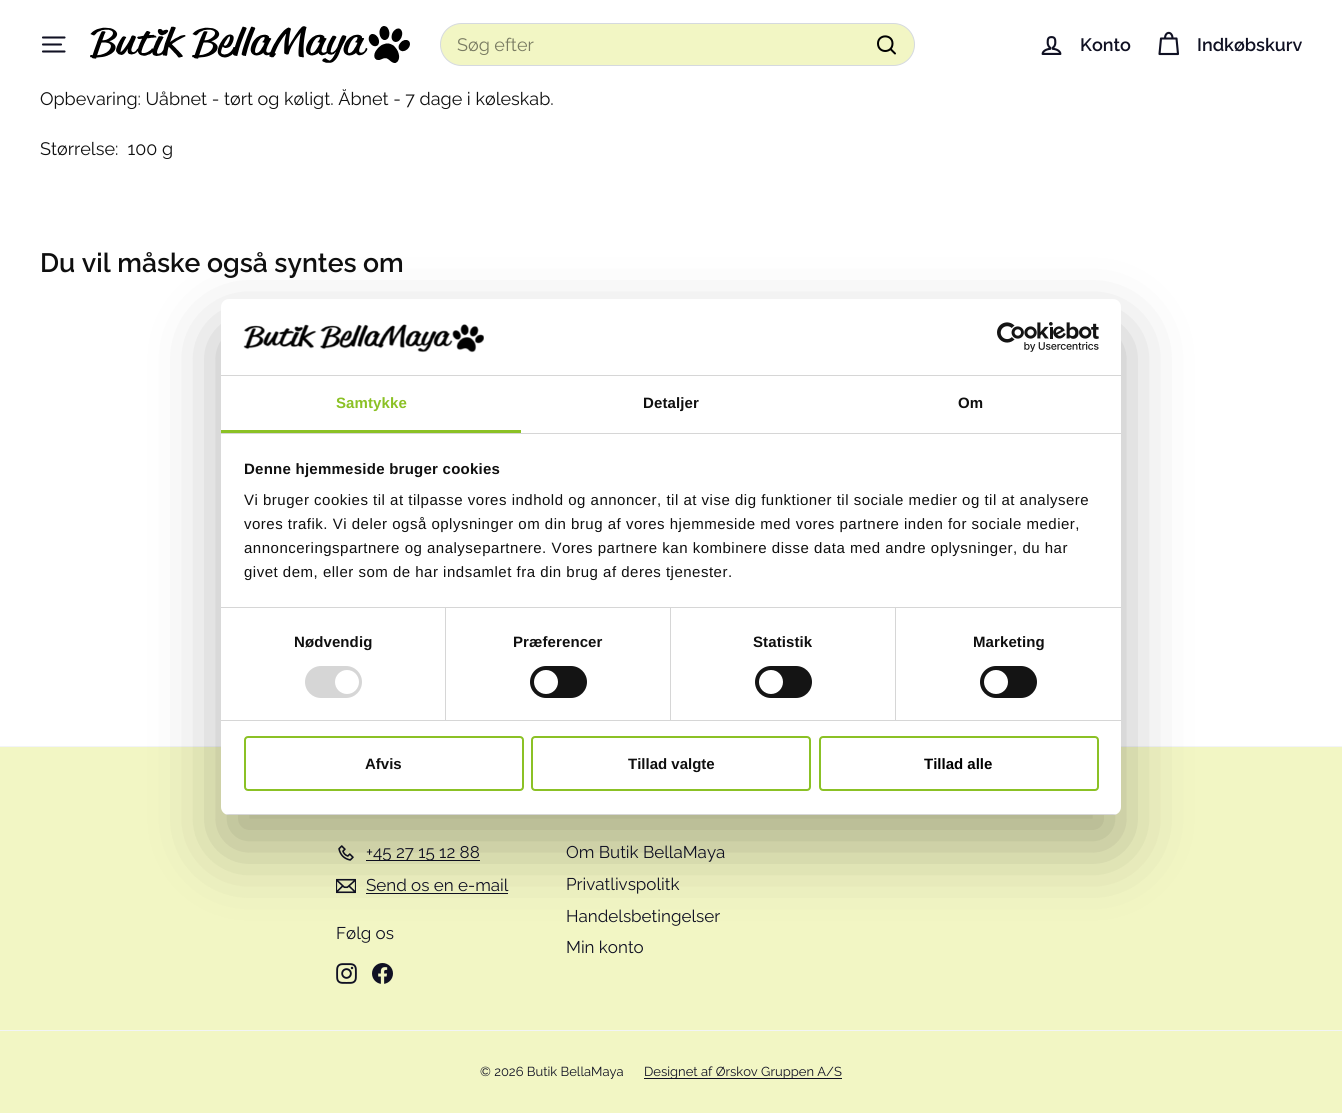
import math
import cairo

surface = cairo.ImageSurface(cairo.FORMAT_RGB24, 1342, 1113)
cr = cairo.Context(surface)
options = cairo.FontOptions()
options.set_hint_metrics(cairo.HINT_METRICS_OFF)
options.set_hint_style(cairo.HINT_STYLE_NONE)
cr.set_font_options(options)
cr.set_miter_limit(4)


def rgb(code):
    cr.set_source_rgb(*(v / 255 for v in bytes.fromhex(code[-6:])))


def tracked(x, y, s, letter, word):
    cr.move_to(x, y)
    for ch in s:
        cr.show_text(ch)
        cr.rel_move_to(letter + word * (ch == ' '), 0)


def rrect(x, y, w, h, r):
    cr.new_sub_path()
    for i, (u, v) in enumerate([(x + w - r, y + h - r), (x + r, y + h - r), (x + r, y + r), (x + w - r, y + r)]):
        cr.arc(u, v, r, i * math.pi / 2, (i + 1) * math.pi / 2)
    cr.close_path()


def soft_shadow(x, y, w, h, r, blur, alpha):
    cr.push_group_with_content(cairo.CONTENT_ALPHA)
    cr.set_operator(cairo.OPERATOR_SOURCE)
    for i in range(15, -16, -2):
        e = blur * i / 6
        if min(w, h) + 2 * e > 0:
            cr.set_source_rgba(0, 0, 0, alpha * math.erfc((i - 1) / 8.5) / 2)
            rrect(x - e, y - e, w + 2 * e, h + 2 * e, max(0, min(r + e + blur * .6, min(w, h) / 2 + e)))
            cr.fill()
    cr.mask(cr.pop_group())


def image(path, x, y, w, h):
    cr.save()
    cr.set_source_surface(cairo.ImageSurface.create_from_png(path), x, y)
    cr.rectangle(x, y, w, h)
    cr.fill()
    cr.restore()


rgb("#ffffff")
cr.paint()
cr.new_path()
cr.move_to(43, 37.5)
cr.line_to(64.5, 37.5)
cr.move_to(43, 44.5)
cr.line_to(61, 44.5)
cr.move_to(43, 51.5)
cr.line_to(64.5, 51.5)
rgb("#101123")
cr.set_line_width(2.1)
cr.set_line_cap(cairo.LINE_CAP_ROUND)
cr.set_line_join(cairo.LINE_JOIN_ROUND)
cr.stroke()
image("img/1.png", 90, 26, 320, 37)
rgb("#f2f6c4")
rrect(440.5, 23.5, 474, 42, 21)
cr.fill_preserve()
rgb("#d5d9df")
cr.set_line_width(1)
cr.set_line_cap(cairo.LINE_CAP_BUTT)
cr.set_line_join(cairo.LINE_JOIN_MITER)
cr.stroke()
cr.new_path()
cr.move_to(892.5, 43.5)
cr.curve_to(892.5, 53.5, 878, 53.5, 878, 43.5)
cr.curve_to(878, 34, 892.5, 34, 892.5, 43.5)
cr.close_path()
cr.move_to(895, 53.5)
cr.line_to(890.5, 49)
rgb("#000000")
cr.set_line_width(2)
cr.set_line_cap(cairo.LINE_CAP_ROUND)
cr.set_line_join(cairo.LINE_JOIN_ROUND)
cr.stroke()
image("img/2.png", 1041, 36, 21, 19)
cr.new_path()
cr.move_to(1165, 38.5)
cr.curve_to(1165, 31, 1172.5, 31, 1172.5, 38.5)
cr.move_to(1161, 38.5)
cr.line_to(1176.5, 38.5)
cr.line_to(1178, 54)
cr.line_to(1159.5, 54)
cr.close_path()
rgb("#101123")
cr.set_line_width(2.1)
cr.stroke()
rgb("#f2f6c4")
cr.rectangle(0, 747, 1342, 366)
cr.fill()
rgb("#f2f4f7")
cr.rectangle(0, 746, 1342, 1)
cr.fill()
image("img/3.png", 338, 845, 16, 16)
rgb("#101123")
cr.rectangle(366, 860, 114, 1)
cr.fill()
image("img/4.png", 336, 878, 20, 16)
cr.rectangle(366, 893, 142, 1)
cr.fill()
image("img/5.png", 336, 963, 21, 21)
image("img/6.png", 372, 963, 21, 21)
rgb("#f2f4f7")
cr.rectangle(0, 1030, 1342, 1)
cr.fill()
rgb("#101123")
cr.rectangle(644, 1078, 198, 1)
cr.fill()
rgb("#000000")
soft_shadow(221, 331, 900, 516, 8, 34, 0.3)
rgb("#ffffff")
rrect(221, 299, 900, 516, 8)
cr.fill()
rgb("#d6d6d6")
cr.rectangle(221, 375, 900, 1)
cr.fill()
image("img/7.png", 243, 324, 241, 29)
image("img/8.png", 997, 322, 102, 30)
for x, y, w, h, color in [
    (221, 433, 900, 1, "#d6d6d6"),
    (221, 430, 300, 3, "#8bc125"),
    (221, 607, 900, 1, "#d6d6d6"),
    (221, 720, 900, 1, "#d6d6d6"),
    (445, 608, 1, 112, "#d6d6d6"),
]:
    rgb(color)
    cr.rectangle(x, y, w, h)
    cr.fill()
rrect(305, 666, 57, 32, 16)
cr.fill()
rgb("#ffffff")
cr.arc(347, 682, 12, 0, 2 * math.pi)
cr.fill()
rgb("#d6d6d6")
cr.rectangle(670, 608, 1, 112)
cr.fill()
rgb("#141414")
rrect(530, 666, 57, 32, 16)
cr.fill()
rgb("#ffffff")
cr.arc(546, 682, 12, 0, 2 * math.pi)
cr.fill()
rgb("#d6d6d6")
cr.rectangle(895, 608, 1, 112)
cr.fill()
rgb("#141414")
rrect(755, 666, 57, 32, 16)
cr.fill()
rgb("#ffffff")
cr.arc(771, 682, 12, 0, 2 * math.pi)
cr.fill()
rgb("#141414")
rrect(980, 666, 57, 32, 16)
cr.fill()
rgb("#ffffff")
cr.arc(996, 682, 12, 0, 2 * math.pi)
cr.fill()
cr.save()
rrect(221, 299, 900, 516, 8)
cr.clip()
rgb("#d6d6d6")
cr.rectangle(221, 814, 900, 1)
cr.fill()
cr.restore()
rrect(245, 737, 278, 53, 3)
rgb("#8bc125")
cr.set_line_width(2)
cr.set_line_cap(cairo.LINE_CAP_BUTT)
cr.set_line_join(cairo.LINE_JOIN_MITER)
cr.stroke()
rrect(532, 737, 278, 53, 3)
cr.stroke()
rrect(820, 737, 278, 53, 3)
cr.stroke()
cr.select_font_face("Raleway")
cr.set_font_size(18)
rgb("#797b62")
cr.move_to(457, 51)
cr.show_text("Søg efter")
cr.select_font_face("Raleway SemiBold")
rgb("#101123")
cr.move_to(1080, 51)
cr.show_text("Konto")
cr.move_to(1197, 51)
cr.show_text("Indkøbskurv")
cr.select_font_face("Raleway")
rgb("#0f0f0f")
cr.move_to(40, 105)
cr.show_text("Opbevaring: Uåbnet - tørt og køligt. Åbnet - 7 dage i køleskab.")
rgb("#ffffff")
cr.rectangle(342, 88, 4, 1)
cr.fill()
rgb("#0f0f0f")
cr.move_to(40, 155)
cr.show_text("Størrelse:  100 g")
cr.select_font_face("Raleway SemiBold")
cr.set_font_size(26.6)
cr.move_to(40, 272)
cr.show_text("Du vil måske også syntes om")
cr.select_font_face("Raleway")
cr.set_font_size(17)
rgb("#101123")
for x, y, s in [
    (366, 858, "+45 27 15 12 88"),
    (366, 891, "Send os en e-mail"),
    (336, 939, "Følg os"),
    (566, 858, "Om Butik BellaMaya"),
    (566, 890, "Privatlivspolitk"),
    (566, 922, "Handelsbetingelser"),
    (566, 953, "Min konto"),
]:
    cr.move_to(x, y)
    cr.show_text(s)
cr.set_font_size(13)
cr.move_to(480, 1076)
cr.show_text("© 2026 Butik BellaMaya")
cr.move_to(644, 1076)
cr.show_text("Designet af Ørskov Gruppen A/S")
cr.select_font_face("Liberation Sans", cairo.FONT_SLANT_NORMAL, cairo.FONT_WEIGHT_BOLD)
cr.set_font_size(15)
rgb("#8bc125")
tracked(336, 408, "Samtykke", 0.1, 0)
rgb("#0f0f0f")
tracked(643, 408, "Detaljer", 0.1, 0)
tracked(958, 408, "Om", 0.1, 0)
tracked(244, 474, "Denne hjemmeside bruger cookies", 0.25, 0)
cr.select_font_face("Liberation Sans")
for x, y, s in [
    (244, 505, "Vi bruger cookies til at tilpasse vores indhold og annoncer, til at vise dig funktioner til sociale medier og til at analysere"),
    (244, 529, "vores trafik. Vi deler også oplysninger om din brug af vores hjemmeside med vores partnere inden for sociale medier,"),
    (244, 553, "annonceringspartnere og analysepartnere. Vores partnere kan kombinere disse data med andre oplysninger, du har"),
    (244, 577, "givet dem, eller som de har indsamlet fra din brug af deres tjenester."),
]:
    tracked(x, y, s, 0.5, 0)
cr.select_font_face("Liberation Sans", cairo.FONT_SLANT_NORMAL, cairo.FONT_WEIGHT_BOLD)
for x, y, s in [
    (294, 647, "Nødvendig"),
    (513, 647, "Præferencer"),
    (753, 647, "Statistik"),
    (973, 647, "Marketing"),
]:
    tracked(x, y, s, 0.1, 0)
cr.move_to(365, 769)
cr.show_text("Afvis")
cr.move_to(628, 769)
cr.show_text("Tillad valgte")
rgb("#000000")
cr.move_to(924, 769)
cr.show_text("Tillad alle")
surface.write_to_png("page.png")
